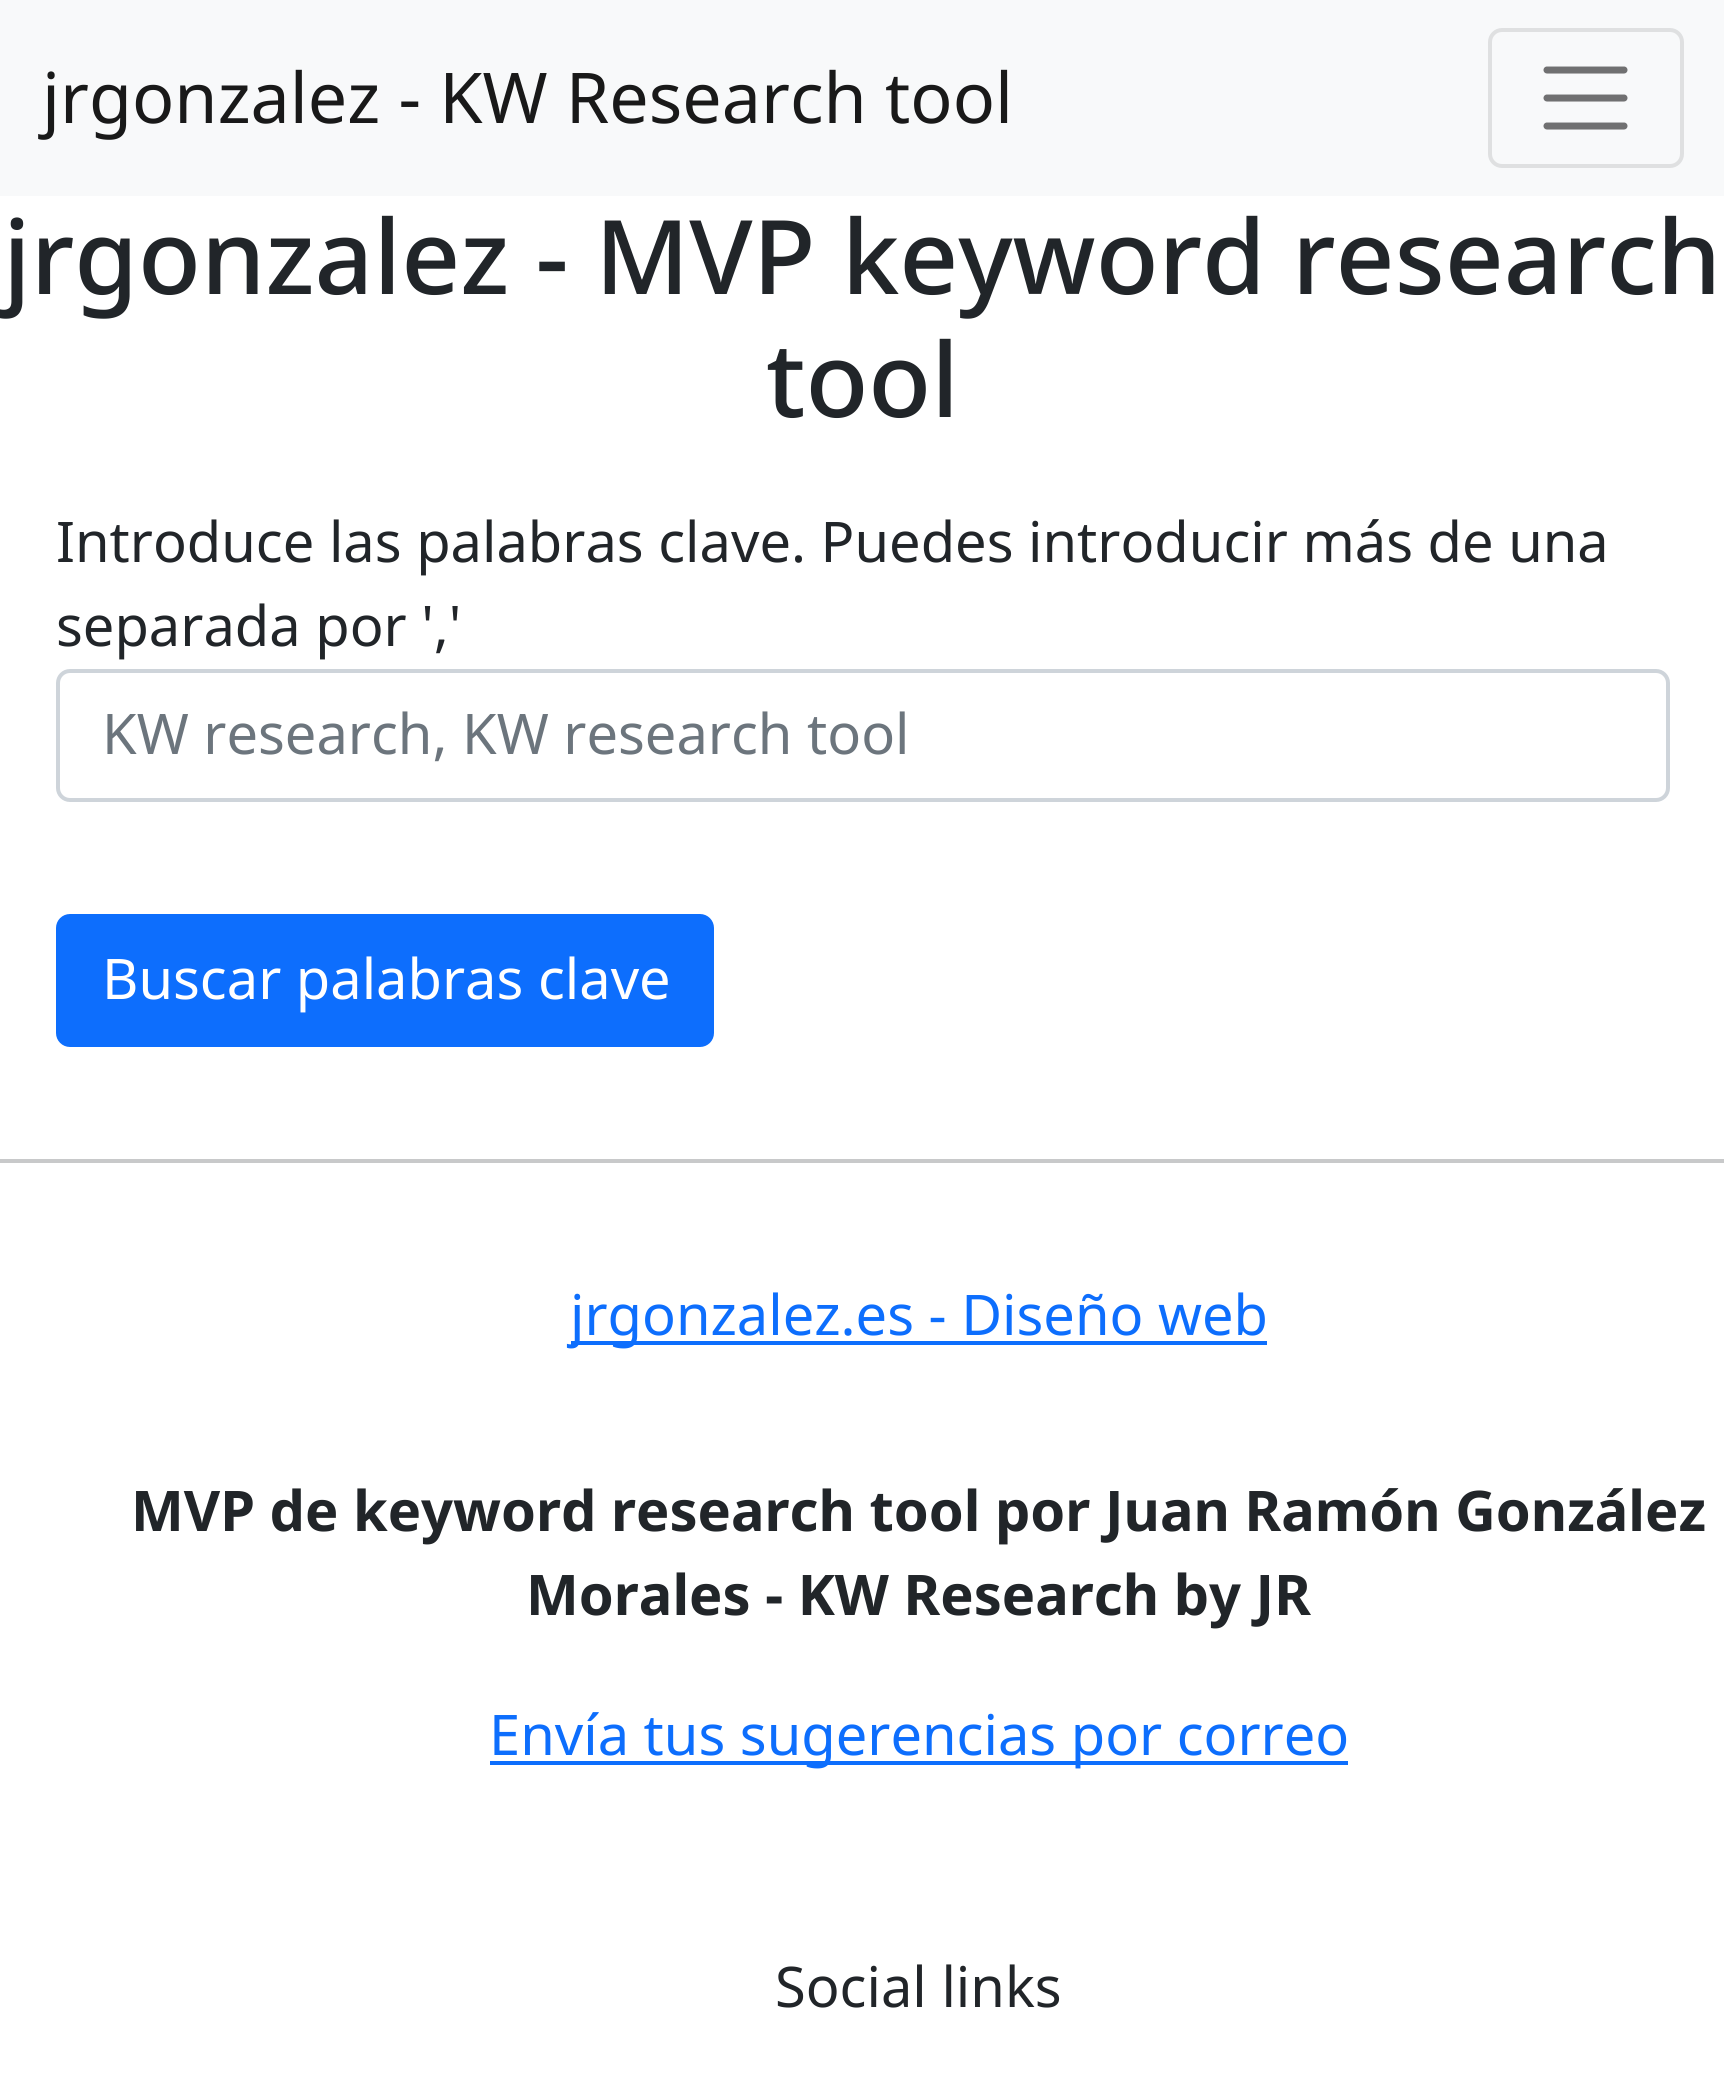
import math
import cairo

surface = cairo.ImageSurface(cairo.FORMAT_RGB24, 1724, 2090)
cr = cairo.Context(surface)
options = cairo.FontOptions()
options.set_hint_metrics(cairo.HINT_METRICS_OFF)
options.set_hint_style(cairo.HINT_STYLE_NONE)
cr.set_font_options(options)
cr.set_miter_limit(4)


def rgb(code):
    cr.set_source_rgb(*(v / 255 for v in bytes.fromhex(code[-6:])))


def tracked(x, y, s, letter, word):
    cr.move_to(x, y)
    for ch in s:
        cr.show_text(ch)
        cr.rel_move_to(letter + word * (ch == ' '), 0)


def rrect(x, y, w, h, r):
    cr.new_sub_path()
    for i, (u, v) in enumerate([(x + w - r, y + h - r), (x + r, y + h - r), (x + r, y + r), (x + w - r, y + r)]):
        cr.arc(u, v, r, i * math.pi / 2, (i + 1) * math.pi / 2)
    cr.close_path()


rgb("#ffffff")
cr.paint()
rgb("#f8f9fa")
cr.rectangle(0, 0, 1724, 196)
cr.fill()
rrect(1490, 30, 192, 136, 12)
rgb("#dfe0e1")
cr.set_line_width(4)
cr.stroke()
cr.new_path()
cr.move_to(1547, 70)
cr.line_to(1624, 70)
cr.move_to(1547, 98)
cr.line_to(1624, 98)
cr.move_to(1547, 126)
cr.line_to(1624, 126)
rgb("#707071")
cr.set_line_width(7)
cr.set_line_cap(cairo.LINE_CAP_ROUND)
cr.stroke()
rrect(58, 671, 1610, 129, 12)
rgb("#ced4da")
cr.set_line_width(4)
cr.set_line_cap(cairo.LINE_CAP_BUTT)
cr.stroke()
rgb("#0d6efd")
rrect(58, 916, 654, 129, 12)
cr.fill_preserve()
cr.stroke()
for x, y, w, h, color in [
    (0, 1159, 1724, 4, "#c8c9ca"),
    (571, 1341, 696, 4, "#0d6efd"),
    (490, 1761, 858, 4, "#0d6efd"),
]:
    rgb(color)
    cr.rectangle(x, y, w, h)
    cr.fill()
cr.select_font_face("Noto Sans")
cr.set_font_size(70)
rgb("#191919")
cr.move_to(42, 123)
cr.show_text("jrgonzalez - KW Research tool")
cr.select_font_face("Noto Sans Medium")
cr.set_font_size(102.9)
rgb("#212529")
tracked(3, 294, "jrgonzalez - MVP keyword research", 0, -0.5)
cr.move_to(766, 417)
cr.show_text("tool")
cr.select_font_face("Noto Sans")
cr.set_font_size(56)
cr.move_to(56, 562)
cr.show_text("Introduce las palabras clave. Puedes introducir más de una")
cr.move_to(56, 646)
cr.show_text("separada por ','")
rgb("#6c757d")
cr.move_to(102, 754)
cr.show_text("KW research, KW research tool")
rgb("#ffffff")
cr.move_to(102, 999)
cr.show_text("Buscar palabras clave")
rgb("#0d6efd")
cr.move_to(570, 1335)
cr.show_text("jrgonzalez.es - Diseño web")
cr.select_font_face("Noto Sans", cairo.FONT_SLANT_NORMAL, cairo.FONT_WEIGHT_BOLD)
rgb("#212529")
cr.move_to(131, 1531)
cr.show_text("MVP de keyword research tool por Juan Ramón González")
cr.move_to(526, 1615)
cr.show_text("Morales - KW Research by JR")
cr.select_font_face("Noto Sans")
rgb("#0d6efd")
cr.move_to(489, 1755)
cr.show_text("Envía tus sugerencias por correo")
rgb("#212529")
cr.move_to(775, 2007)
cr.show_text("Social links")
surface.write_to_png("page.png")
